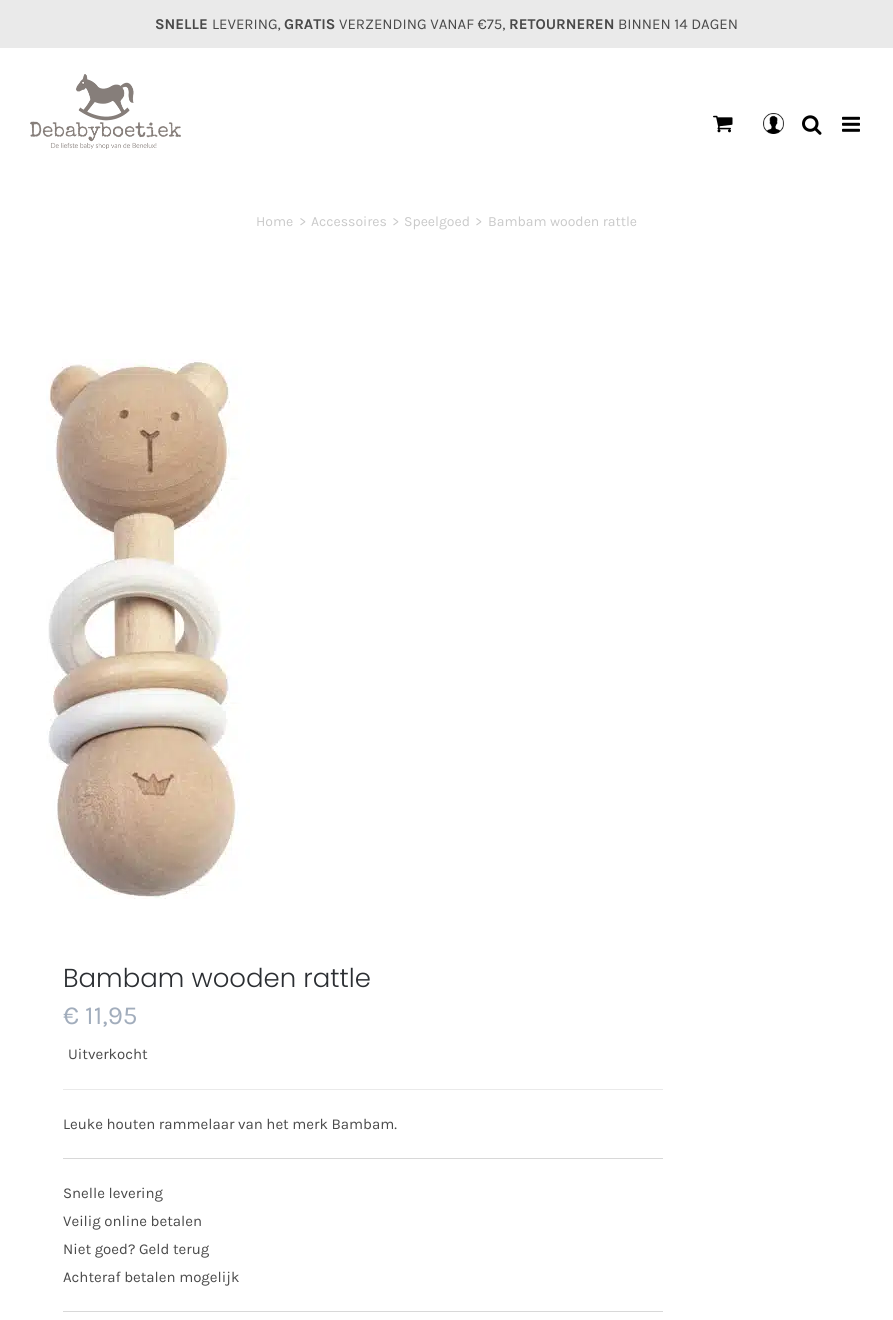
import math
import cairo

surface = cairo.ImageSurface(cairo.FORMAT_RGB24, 893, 1320)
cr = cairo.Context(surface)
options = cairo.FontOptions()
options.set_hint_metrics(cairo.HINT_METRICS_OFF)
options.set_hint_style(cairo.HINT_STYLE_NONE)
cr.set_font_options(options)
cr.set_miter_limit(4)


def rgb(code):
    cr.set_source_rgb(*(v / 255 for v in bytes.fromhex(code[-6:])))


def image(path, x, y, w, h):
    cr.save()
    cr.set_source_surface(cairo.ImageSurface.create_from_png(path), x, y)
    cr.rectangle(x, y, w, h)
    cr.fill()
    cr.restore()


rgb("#ffffff")
cr.paint()
rgb("#eaeaea")
cr.rectangle(0, 0, 893, 48)
cr.fill()
image("img/1.png", 30, 74, 151, 75)
image("img/2.png", 802, 115, 20, 20)
image("img/3.png", 842, 116, 18, 16)
image("img/4.png", 713, 115, 20, 18)
image("img/5.png", 763, 113, 21, 21)
image("img/6.png", 46, 359, 204, 540)
for x, y, w, h, color in [
    (63, 1089, 600, 1, "#eaeaea"),
    (63, 1158, 600, 1, "#d8d8d8"),
    (63, 1311, 600, 1, "#d8d8d8"),
]:
    rgb(color)
    cr.rectangle(x, y, w, h)
    cr.fill()
cr.select_font_face("Karla", cairo.FONT_SLANT_NORMAL, cairo.FONT_WEIGHT_BOLD)
cr.set_font_size(15)
rgb("#494949")
cr.move_to(155, 29)
cr.show_text("SNELLE")
cr.select_font_face("Karla")
cr.move_to(212, 29)
cr.show_text("LEVERING,")
cr.select_font_face("Karla", cairo.FONT_SLANT_NORMAL, cairo.FONT_WEIGHT_BOLD)
cr.move_to(284, 29)
cr.show_text("GRATIS")
cr.select_font_face("Karla")
cr.move_to(339, 29)
cr.show_text("VERZENDING VANAF €75,")
cr.select_font_face("Karla", cairo.FONT_SLANT_NORMAL, cairo.FONT_WEIGHT_BOLD)
cr.move_to(509, 29)
cr.show_text("RETOURNEREN")
cr.select_font_face("Karla")
cr.move_to(618, 29)
cr.show_text("BINNEN 14 DAGEN")
cr.set_font_size(14)
rgb("#c9c9c9")
for x, y, s in [
    (256, 226, "Home"),
    (299, 226, ">"),
    (311, 226, "Accessoires"),
    (392, 226, ">"),
    (404, 226, "Speelgoed"),
    (475, 226, ">"),
    (488, 226, "Bambam wooden rattle"),
]:
    cr.move_to(x, y)
    cr.show_text(s)
cr.select_font_face("Poppins Light")
cr.set_font_size(26)
rgb("#2b2e32")
cr.move_to(63, 987)
cr.show_text("Bambam wooden rattle")
cr.select_font_face("Karla")
rgb("#a2adbc")
cr.move_to(63, 1024)
cr.show_text("€ 11,95")
cr.set_font_size(15)
rgb("#494949")
for x, y, s in [
    (68, 1059, "Uitverkocht"),
    (63, 1129, "Leuke houten rammelaar van het merk Bambam."),
    (63, 1198, "Snelle levering"),
    (63, 1226, "Veilig online betalen"),
    (63, 1254, "Niet goed? Geld terug"),
    (63, 1282, "Achteraf betalen mogelijk"),
]:
    cr.move_to(x, y)
    cr.show_text(s)
surface.write_to_png("page.png")
